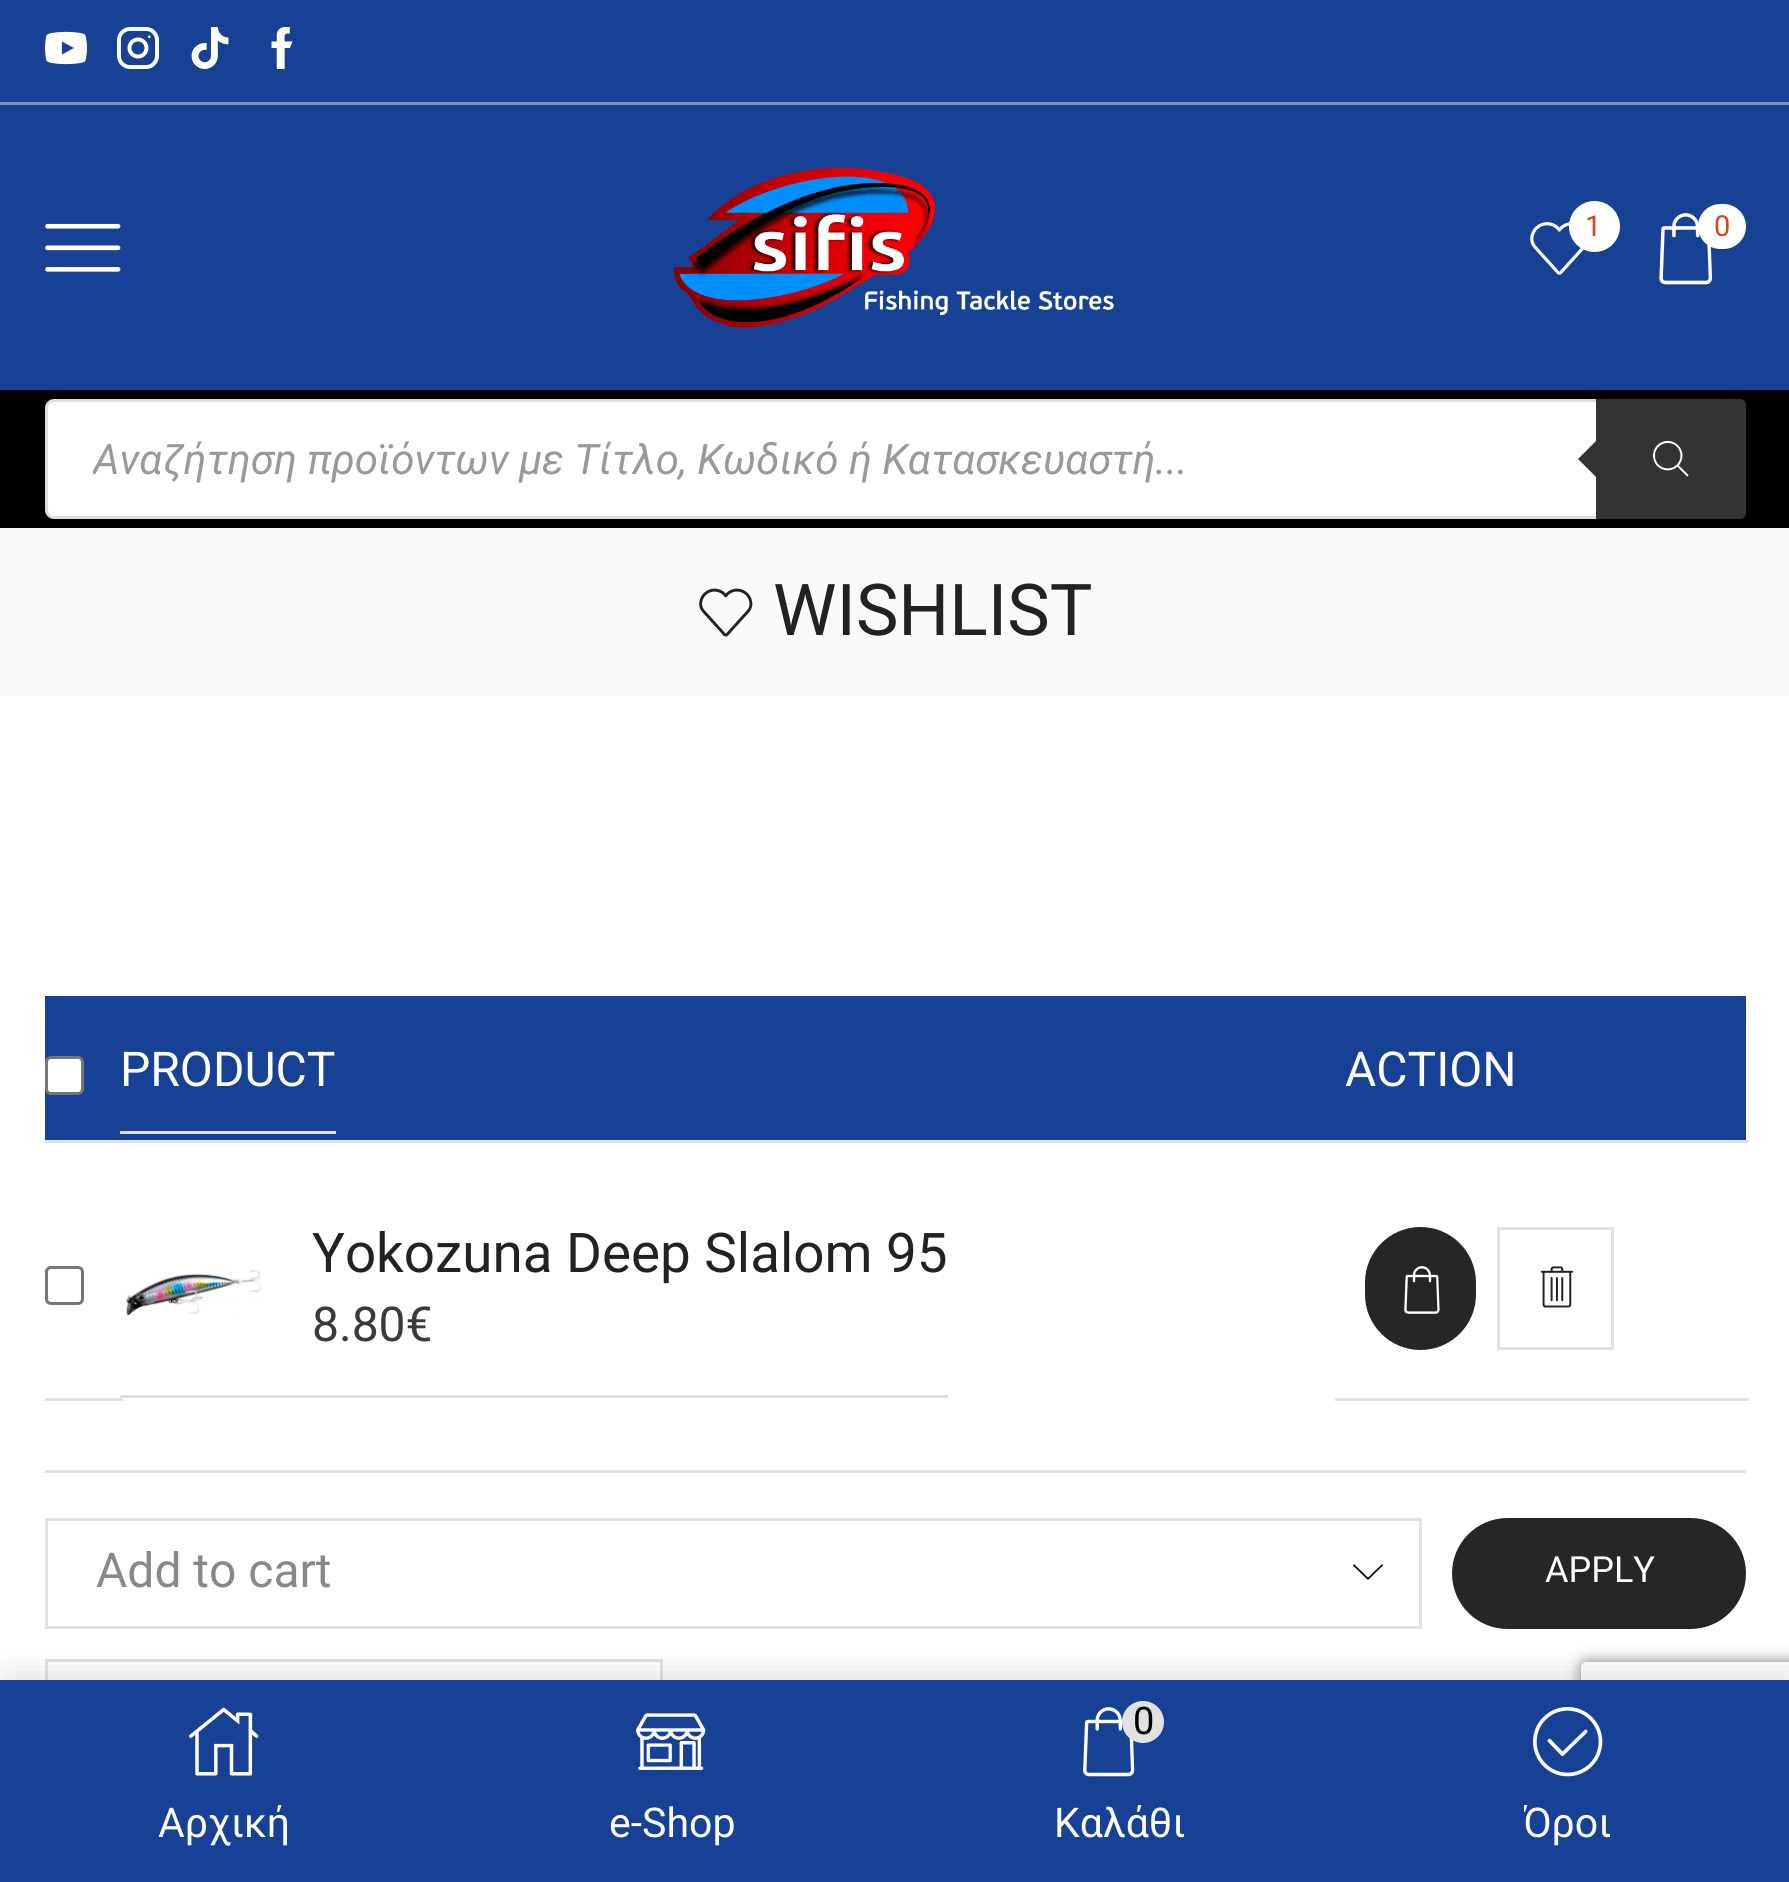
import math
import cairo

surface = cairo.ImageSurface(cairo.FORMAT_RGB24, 1789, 1882)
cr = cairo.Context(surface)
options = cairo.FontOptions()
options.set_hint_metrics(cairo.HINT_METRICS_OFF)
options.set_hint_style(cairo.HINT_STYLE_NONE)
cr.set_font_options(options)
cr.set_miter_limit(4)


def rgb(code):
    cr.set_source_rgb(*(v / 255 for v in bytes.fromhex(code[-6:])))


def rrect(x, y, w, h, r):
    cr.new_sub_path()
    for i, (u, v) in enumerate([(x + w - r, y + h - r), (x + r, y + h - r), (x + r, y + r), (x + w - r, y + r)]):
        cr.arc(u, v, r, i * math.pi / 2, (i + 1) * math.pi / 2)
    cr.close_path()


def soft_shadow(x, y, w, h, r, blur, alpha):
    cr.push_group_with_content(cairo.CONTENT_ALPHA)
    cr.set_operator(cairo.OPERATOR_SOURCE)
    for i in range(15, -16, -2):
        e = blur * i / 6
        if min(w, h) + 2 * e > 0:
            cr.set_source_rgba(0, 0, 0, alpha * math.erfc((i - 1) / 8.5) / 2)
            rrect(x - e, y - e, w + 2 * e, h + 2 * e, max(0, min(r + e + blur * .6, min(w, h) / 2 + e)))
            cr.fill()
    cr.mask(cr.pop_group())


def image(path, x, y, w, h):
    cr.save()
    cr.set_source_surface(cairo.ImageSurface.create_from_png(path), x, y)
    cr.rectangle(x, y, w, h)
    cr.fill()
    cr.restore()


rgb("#ffffff")
cr.paint()
rgb("#174195")
cr.rectangle(0, 0, 1789, 102)
cr.fill()
rgb("#7c91bb")
cr.rectangle(0, 102, 1789, 3)
cr.fill()
image("img/1.png", 45, 31, 42, 34)
image("img/2.png", 117, 27, 42, 42)
image("img/3.png", 191, 27, 38, 42)
image("img/4.png", 271, 27, 22, 42)
rgb("#174195")
cr.rectangle(0, 105, 1789, 285)
cr.fill()
image("img/5.png", 45, 223, 76, 49)
image("img/6.png", 673, 168, 441, 160)
image("img/7.png", 1530, 222, 54, 53)
rgb("#ffffff")
cr.arc(1594.5, 226.5, 25.5, 0, 2 * math.pi)
cr.fill()
image("img/8.png", 1659, 213, 53, 72)
rrect(1698, 204, 48, 45, 22.5)
cr.fill()
rgb("#000000")
cr.rectangle(0, 390, 1789, 138)
cr.fill()
rgb("#ffffff")
rrect(46.5, 400.5, 1698, 117, 7.5)
cr.fill_preserve()
rgb("#dddddd")
cr.set_line_width(3)
cr.stroke()
rgb("#333333")
cr.new_path()
cr.move_to(1596, 399)
cr.line_to(1740, 399)
cr.curve_to(1743.5, 399, 1746, 401.5, 1746, 405)
cr.line_to(1746, 513)
cr.curve_to(1746, 516.5, 1743.5, 519, 1740, 519)
cr.line_to(1596, 519)
cr.close_path()
cr.fill()
cr.new_path()
cr.move_to(1602, 435)
cr.line_to(1602, 483)
cr.line_to(1578, 459)
cr.close_path()
cr.fill()
image("img/9.png", 1653, 441, 36, 36)
rgb("#fafafa")
cr.rectangle(0, 528, 1789, 168)
cr.fill()
image("img/10.png", 699, 588, 54, 49)
rgb("#174195")
cr.rectangle(45, 996, 1701, 144)
cr.fill()
rgb("#e1e1e1")
cr.rectangle(45, 1140, 1704, 3)
cr.fill()
rgb("#ffffff")
rrect(46.5, 1057.5, 36, 36, 4.5)
cr.fill_preserve()
rgb("#767676")
cr.stroke()
rgb("#e1e1e1")
cr.rectangle(120, 1131, 216, 3)
cr.fill()
cr.rectangle(45, 1398, 78, 3)
cr.fill()
rrect(46.5, 1267.5, 36, 36, 4.5)
rgb("#767676")
cr.stroke()
rgb("#e1e1e1")
cr.rectangle(120, 1395, 828, 3)
cr.fill()
image("img/11.png", 125, 1270, 137, 46)
cr.rectangle(1335, 1398, 414, 3)
cr.fill()
rgb("#262626")
rrect(1365, 1227, 111, 123, 55.5)
cr.fill()
image("img/12.png", 1404, 1266, 36, 48)
cr.rectangle(1498.5, 1228.5, 114, 120)
rgb("#e1e1e1")
cr.stroke()
image("img/13.png", 1540, 1266, 33, 42)
cr.rectangle(45, 1470, 1701, 3)
cr.fill()
image("img/14.png", 1353, 1564, 30, 16)
cr.rectangle(46.5, 1519.5, 1374, 108)
cr.stroke()
rgb("#262626")
rrect(1452, 1518, 294, 111, 55.5)
cr.fill()
cr.rectangle(46.5, 1660.5, 615, 111)
rgb("#e1e1e1")
cr.stroke()
rgb("#000000")
soft_shadow(6, 1680, 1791, 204, 0, 18, 0.15)
cr.save()
cr.set_fill_rule(cairo.FILL_RULE_EVEN_ODD)
cr.new_path()
cr.move_to(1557, 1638)
cr.line_to(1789, 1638)
cr.line_to(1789, 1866)
cr.line_to(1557, 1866)
cr.close_path()
cr.move_to(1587, 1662)
cr.line_to(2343, 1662)
cr.curve_to(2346.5, 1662, 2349, 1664.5, 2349, 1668)
cr.line_to(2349, 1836)
cr.curve_to(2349, 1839.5, 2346.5, 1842, 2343, 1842)
cr.line_to(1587, 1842)
cr.curve_to(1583.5, 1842, 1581, 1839.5, 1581, 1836)
cr.line_to(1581, 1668)
cr.curve_to(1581, 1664.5, 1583.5, 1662, 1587, 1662)
cr.close_path()
cr.clip()
rgb("#808080")
soft_shadow(1581, 1662, 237, 180, 6, 7.5, 1)
cr.restore()
rgb("#174195")
cr.rectangle(0, 1680, 1789, 202)
cr.fill()
image("img/15.png", 189, 1707, 70, 69)
image("img/16.png", 636, 1713, 70, 57)
image("img/17.png", 1083, 1707, 52, 70)
rgb("#e1e1e1")
cr.arc(1143, 1722, 21, 0, 2 * math.pi)
cr.fill()
image("img/18.png", 1533, 1707, 70, 70)
cr.select_font_face("Roboto")
cr.set_font_size(29)
rgb("#d84621")
cr.move_to(1585, 236)
cr.show_text("1")
cr.move_to(1714, 236)
cr.show_text("0")
cr.save()
cr.rectangle(93, 435, 1605, 48)
cr.clip()
cr.select_font_face("Roboto", cairo.FONT_SLANT_ITALIC)
cr.set_font_size(42)
rgb("#999999")
cr.move_to(93, 474)
cr.show_text("Αναζήτηση προϊόντων με Τίτλο, Κωδικό ή Κατασκευαστή...")
cr.restore()
cr.set_font_size(71.5)
rgb("#222222")
cr.move_to(773, 635)
cr.show_text("WISHLIST")
cr.set_font_size(48)
rgb("#fdfdfd")
cr.move_to(120, 1086)
cr.show_text("PRODUCT")
cr.move_to(1345, 1086)
cr.show_text("ACTION")
cr.set_font_size(54.75)
rgb("#222222")
cr.move_to(312, 1272)
cr.show_text("Yokozuna Deep Slalom 95")
cr.set_font_size(48)
rgb("#3a3a3a")
cr.move_to(312, 1341)
cr.show_text("8.80€")
rgb("#888888")
cr.move_to(96, 1587)
cr.show_text("Add to cart")
cr.set_font_size(36)
rgb("#fdfdfd")
cr.move_to(1545, 1582)
cr.show_text("APPLY")
cr.set_font_size(41)
cr.move_to(158, 1837)
cr.show_text("Αρχική")
cr.move_to(609, 1837)
cr.show_text("e-Shop")
cr.set_font_size(38)
rgb("#000000")
cr.move_to(1133, 1734)
cr.show_text("0")
cr.set_font_size(41)
rgb("#fdfdfd")
cr.move_to(1054, 1837)
cr.show_text("Καλάθι")
cr.save()
cr.rectangle(1524, 1776, 87, 81)
cr.clip()
cr.move_to(1523, 1837)
cr.show_text("Όροι")
cr.restore()
surface.write_to_png("page.png")
